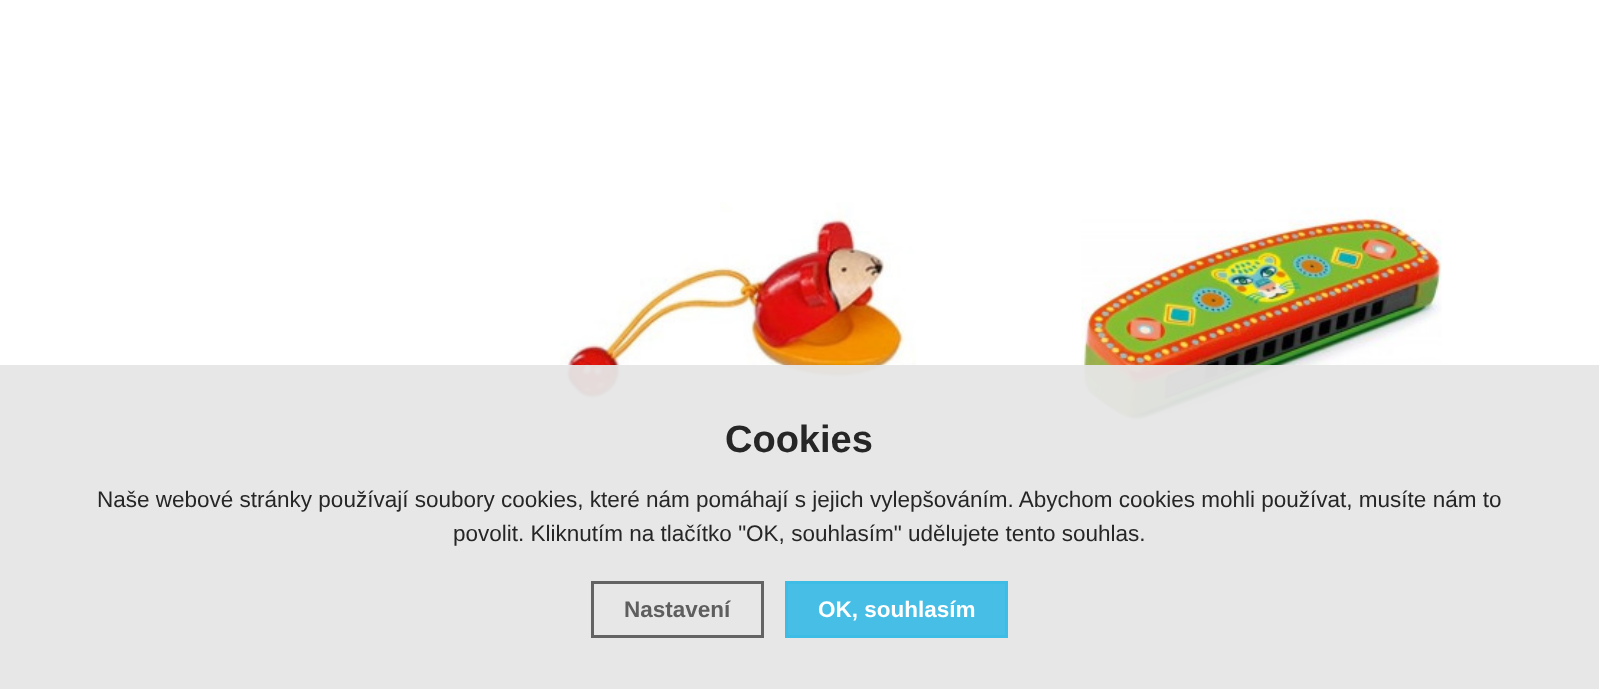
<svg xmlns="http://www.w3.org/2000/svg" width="1599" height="689">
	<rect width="100%" height="100%" fill="#FFFFFF" />
	<image x="560" y="202" width="356" height="202" href="assets/img1.png" />
	<image x="1081" y="207" width="361" height="218" href="assets/img2.png" />
	<rect x="0" y="365" width="1599" height="324" fill="#E6E6E6" fill-opacity="0.95" />
	<text x="725" y="452" font-family="Liberation Sans" font-size="38" font-weight="700" fill="#262626">Cookies</text>
	<g font-family="Liberation Sans" font-size="22.5" fill="#262626">
		<text x="97" y="507">Naše webové stránky používají soubory cookies, které nám pomáhají s jejich vylepšováním. Abychom cookies mohli používat, musíte nám to</text>
		<text x="453" y="541">povolit. Kliknutím na tlačítko "OK, souhlasím" udělujete tento souhlas.</text>
	</g>
	<rect x="592.5" y="582.5" width="170" height="54" fill="none" stroke="#5C5C5D" stroke-opacity="0.95" stroke-width="3" />
	<text x="624" y="617" font-family="Liberation Sans" font-size="22.5" font-weight="700" fill="#5E5E5E">Nastavení</text>
	<rect x="786.5" y="582.5" width="220" height="54" fill="#3DBCE5" fill-opacity="0.95" stroke="#3DBCE5" stroke-width="3" />
	<text x="818" y="617" font-family="Liberation Sans" font-size="22.5" font-weight="700" fill="#FFFFFF">OK, souhlasím</text>
</svg>
